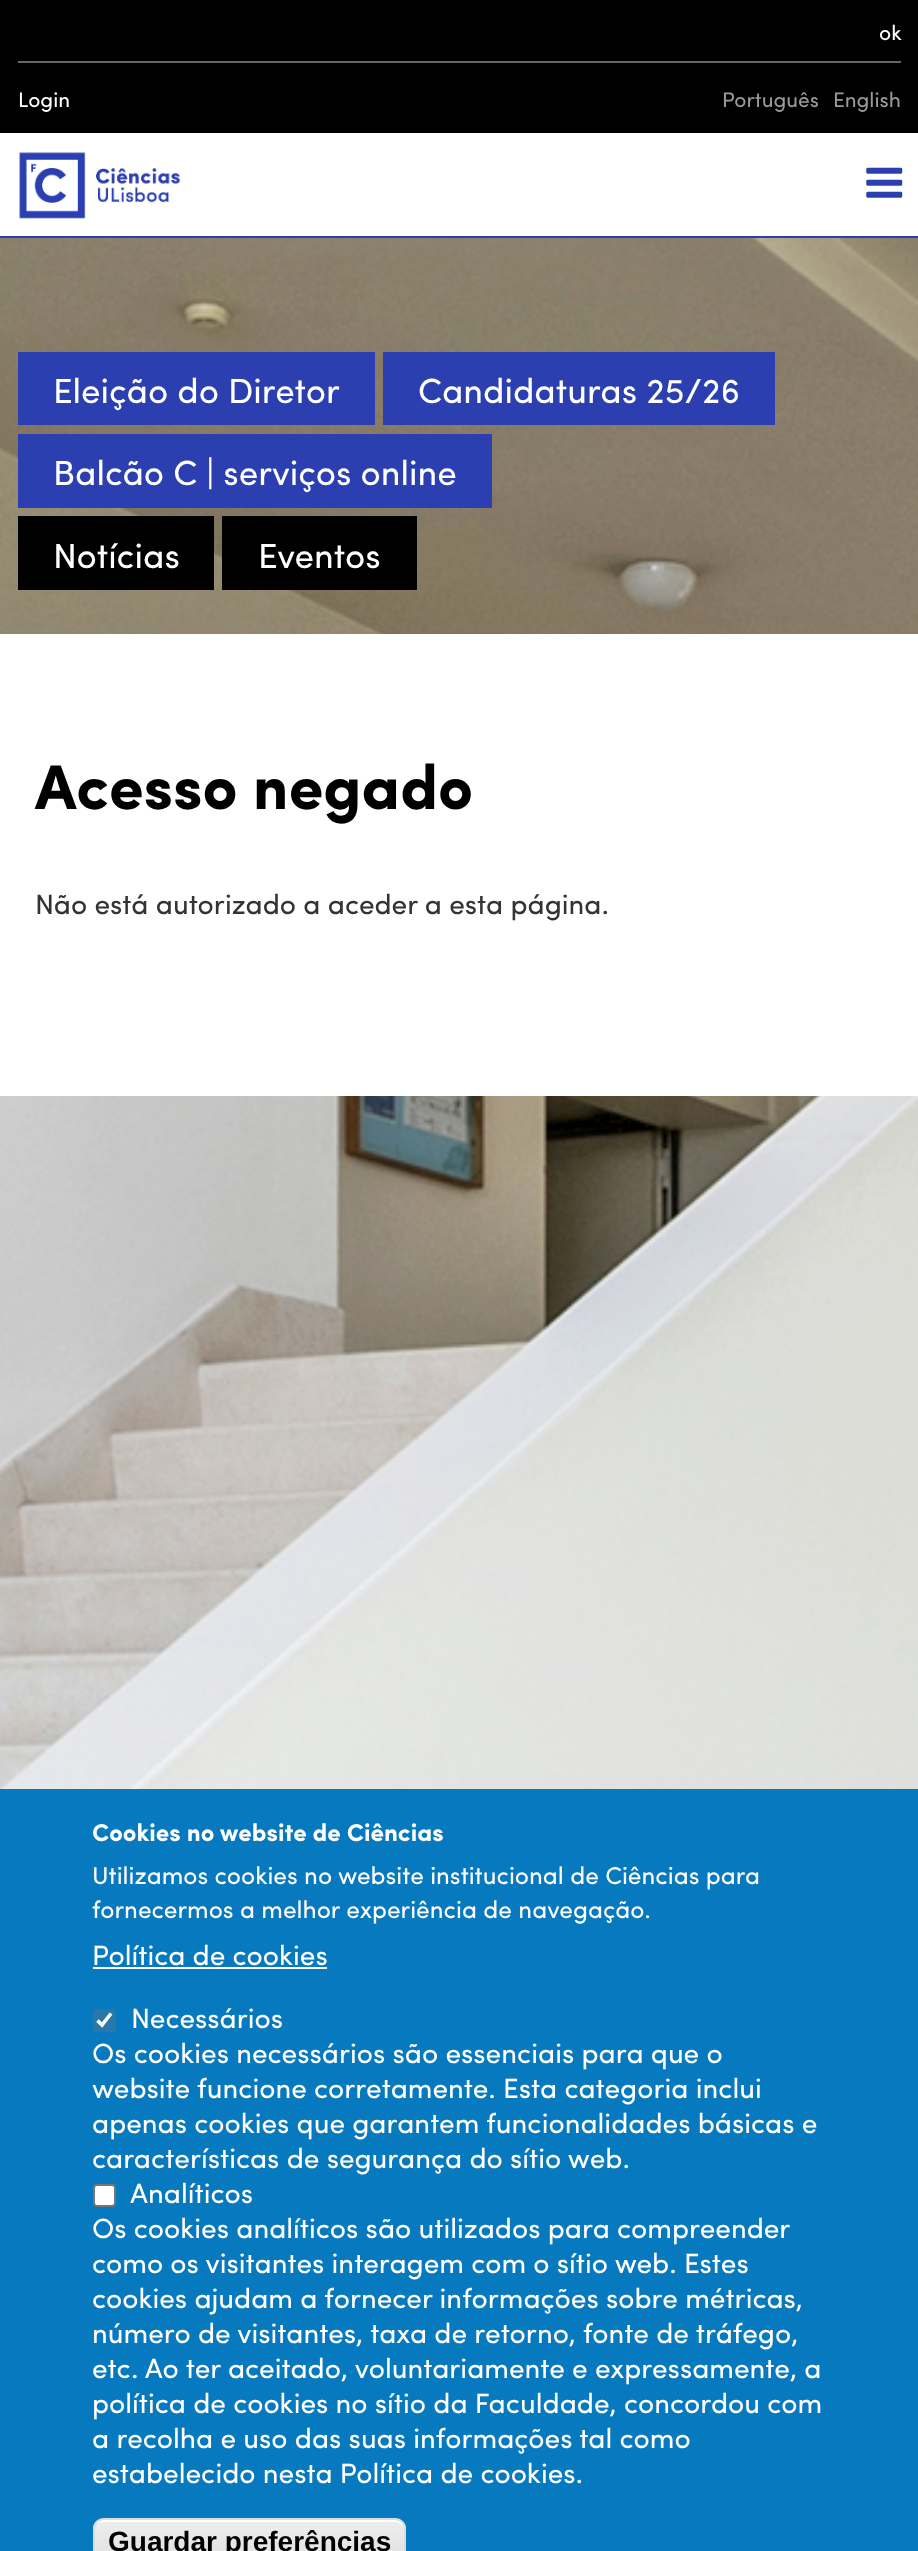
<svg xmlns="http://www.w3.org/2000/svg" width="918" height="2551">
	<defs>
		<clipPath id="clip1"><rect x="93" y="2518" width="313" height="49" rx="11" /></clipPath>
		<linearGradient id="g1" gradientUnits="userSpaceOnUse" x1="249" y1="2520" x2="249" y2="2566"><stop offset="0.05" stop-color="#EDEDED" /><stop offset="1" stop-color="#DFDFDF" /></linearGradient>
	</defs>
	<rect width="100%" height="100%" fill="#FFFFFF" />
	<image x="0" y="238" width="918" height="1551" href="assets/img1.png" />
	<rect x="0" y="0" width="918" height="133" fill="#000000" />
	<rect x="18" y="61" width="883" height="2" fill="#666666" />
	<g font-family="Sofia" font-size="21" fill="#FFFFFF">
		<text x="879" y="40">ok</text>
		<text x="18" y="107">Login</text>
	</g>
	<g font-family="Sofia" font-size="21" fill="#999999">
		<text x="722" y="107">Português</text>
		<text x="833" y="107">English</text>
	</g>
	<rect x="0" y="236" width="918" height="2" fill="#2C3FB1" />
	<image x="19" y="152" width="162" height="67" href="assets/img2.png" />
	<image x="866" y="167" width="37" height="31" href="assets/img3.png" />
	<rect x="18" y="352" width="357" height="73" fill="#2C3FB1" />
	<text x="53" y="403" font-family="Sofia" font-size="35" fill="#FFFFFF">Eleição do Diretor</text>
	<rect x="383" y="352" width="392" height="73" fill="#2C3FB1" />
	<text x="418" y="403" font-family="Sofia" font-size="35" fill="#FFFFFF">Candidaturas 25/26</text>
	<rect x="18" y="434" width="474" height="74" fill="#2C3FB1" />
	<text x="53" y="485" font-family="Sofia" font-size="35" fill="#FFFFFF">Balcão C | serviços online</text>
	<rect x="18" y="516" width="196" height="74" fill="#000000" />
	<text x="53" y="568" font-family="Sofia" font-size="35" fill="#FFFFFF">Notícias</text>
	<rect x="222" y="516" width="195" height="74" fill="#000000" />
	<text x="258" y="568" font-family="Sofia" font-size="35" fill="#FFFFFF">Eventos</text>
	<rect x="0" y="634" width="918" height="462" fill="#FFFFFF" />
	<text x="35" y="809" font-family="'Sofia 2'" font-size="63" fill="#000000">Acesso negado</text>
	<text x="35" y="914" font-family="Sofia" font-size="28" fill="#333333">Não está autorizado a aceder a esta página.</text>
	<rect x="0" y="1789" width="918" height="762" fill="#0779BF" />
	<text x="92" y="1841" font-family="'Sofia 2'" font-size="24.5" fill="#FFFFFF">Cookies no website de Ciências</text>
	<g font-family="Sofia" font-size="24.5" fill="#FFFFFF">
		<text x="92" y="1884">Utilizamos cookies no website institucional de Ciências para</text>
		<text x="92" y="1918">fornecermos a melhor experiência de navegação.</text>
	</g>
	<text x="92" y="1965" font-family="Sofia" font-size="28" fill="#FFFFFF">Política de cookies</text>
	<rect x="93" y="1967" width="234" height="2" fill="#FFFFFF" />
	<rect x="93" y="2009" width="23" height="23" rx="4" fill="#2878A9" />
	<path d="M97.5 2020.5L102 2025L111 2013.5" fill="none" stroke="#FFFFFF" stroke-width="3.6" />
	<g font-family="Sofia" font-size="28" fill="#FFFFFF">
		<text x="131" y="2028">Necessários</text>
		<text x="92" y="2063">Os cookies necessários são essenciais para que o</text>
		<text x="92" y="2098">website funcione corretamente. Esta categoria inclui</text>
		<text x="92" y="2133">apenas cookies que garantem funcionalidades básicas e</text>
		<text x="92" y="2168">características de segurança do sítio web.</text>
	</g>
	<rect x="94" y="2185" width="21" height="21" rx="3" fill="#FFFFFF" stroke="#767676" stroke-width="2" />
	<g font-family="Sofia" font-size="28" fill="#FFFFFF">
		<text x="130" y="2203">Analíticos</text>
		<text x="92" y="2238">Os cookies analíticos são utilizados para compreender</text>
		<text x="92" y="2273">como os visitantes interagem com o sítio web. Estes</text>
		<text x="92" y="2308">cookies ajudam a fornecer informações sobre métricas,</text>
		<text x="92" y="2343">número de visitantes, taxa de retorno, fonte de tráfego,</text>
		<text x="92" y="2378">etc. Ao ter aceitado, voluntariamente e expressamente, a</text>
		<text x="92" y="2413">política de cookies no sítio da Faculdade, concordou com</text>
		<text x="92" y="2448">a recolha e uso das suas informações tal como</text>
		<text x="92" y="2483">estabelecido nesta Política de cookies.</text>
	</g>
	<g clip-path="url(#clip1)">
		<rect x="93" y="2520" width="313" height="31" fill="url(#g1)" />
	</g>
	<path d="M103 2522H396C400 2522 404 2526 404 2530V2529C404 2524 400 2520 395 2520H104C100 2520 97 2522 96 2525C97 2523 100 2522 103 2522Z" fill="#FFFFFF" />
	<rect x="94" y="2519" width="311" height="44" rx="10" fill="none" stroke="#DCDCDC" stroke-width="2" />
	<text x="108" y="2551" font-family="Liberation Sans" font-size="28" font-weight="700" fill="#000000">Guardar preferências</text>
</svg>
